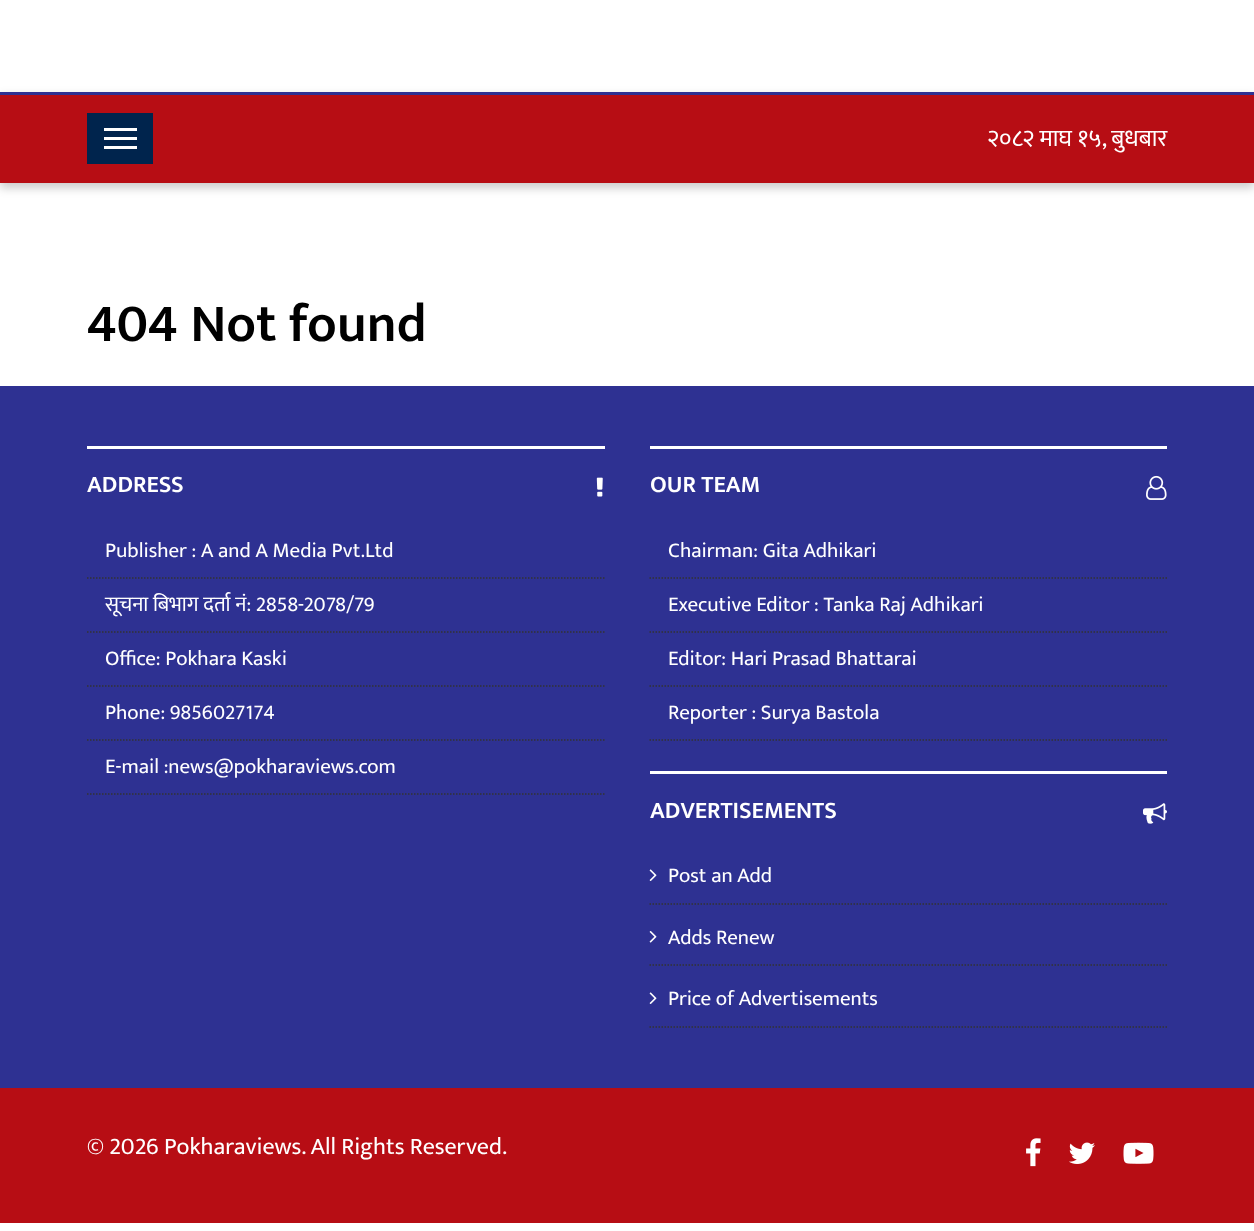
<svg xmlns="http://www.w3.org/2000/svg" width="1254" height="1231">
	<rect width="100%" height="100%" fill="#FFFFFF" />
	<rect x="0" y="96" width="1254" height="92" fill="#000000" fill-opacity="0.2" filter="blur(5px)" />
	<rect x="0" y="95" width="1254" height="88" fill="#B70D14" />
	<rect x="0" y="92" width="1254" height="3" fill="#2F3192" />
	<rect x="87" y="113" width="66" height="51" fill="#00244D" />
	<rect x="104" y="128" width="33" height="3" fill="#FFFFFF" />
	<rect x="104" y="137" width="33" height="3" fill="#FFFFFF" />
	<rect x="104" y="146" width="33" height="3" fill="#FFFFFF" />
	<text x="987" y="146" font-family="Ek Mukta" font-size="24" fill="#FFFFFF">२०८२ माघ १५, बुधबार</text>
	<text x="87" y="341" font-family="Ek Mukta" font-size="54" font-weight="600" fill="#000000">404 Not found</text>
	<rect x="0" y="386" width="1254" height="702" fill="#2E3192" />
	<rect x="87" y="446" width="518" height="3" fill="#FFFFFF" />
	<text x="87" y="492" font-family="Ek Mukta" font-size="24" font-weight="600" fill="#FFFFFF">ADDRESS</text>
	<image x="596" y="477" width="7" height="20" href="assets/img1.png" />
	<path d="M87 578H604.5" fill="none" stroke="#333333" stroke-width="1.5" stroke-dasharray="1.5 1.5" />
	<text x="105" y="557" font-family="Ek Mukta" font-size="21" fill="#FFFFFF">Publisher : A and A Media Pvt.Ltd</text>
	<path d="M87 632H604.5" fill="none" stroke="#333333" stroke-width="1.5" stroke-dasharray="1.5 1.5" />
	<text x="105" y="611" font-family="Ek Mukta" font-size="21" fill="#FFFFFF">सूचना बिभाग दर्ता नं: 2858-2078/79</text>
	<path d="M87 686H604.5" fill="none" stroke="#333333" stroke-width="1.5" stroke-dasharray="1.5 1.5" />
	<text x="105" y="665" font-family="Ek Mukta" font-size="21" fill="#FFFFFF">Office: Pokhara Kaski</text>
	<path d="M87 740H604.5" fill="none" stroke="#333333" stroke-width="1.5" stroke-dasharray="1.5 1.5" />
	<text x="105" y="719" font-family="Ek Mukta" font-size="21" fill="#FFFFFF">Phone: 9856027174</text>
	<path d="M87 794H604.5" fill="none" stroke="#333333" stroke-width="1.5" stroke-dasharray="1.5 1.5" />
	<text x="105" y="773" font-family="Ek Mukta" font-size="21" fill="#FFFFFF">E-mail :news@pokharaviews.com</text>
	<rect x="650" y="446" width="517" height="3" fill="#FFFFFF" />
	<text x="650" y="492" font-family="Ek Mukta" font-size="24" font-weight="600" fill="#FFFFFF">OUR TEAM</text>
	<image x="1146" y="475" width="21" height="25" href="assets/img2.png" />
	<path d="M649.5 578H1167" fill="none" stroke="#333333" stroke-width="1.5" stroke-dasharray="1.5 1.5" />
	<text x="668" y="557" font-family="Ek Mukta" font-size="21" fill="#FFFFFF">Chairman: Gita Adhikari</text>
	<path d="M649.5 632H1167" fill="none" stroke="#333333" stroke-width="1.5" stroke-dasharray="1.5 1.5" />
	<text x="668" y="611" font-family="Ek Mukta" font-size="21" fill="#FFFFFF">Executive Editor : Tanka Raj Adhikari</text>
	<path d="M649.5 686H1167" fill="none" stroke="#333333" stroke-width="1.5" stroke-dasharray="1.5 1.5" />
	<text x="668" y="665" font-family="Ek Mukta" font-size="21" fill="#FFFFFF">Editor: Hari Prasad Bhattarai</text>
	<path d="M649.5 740H1167" fill="none" stroke="#333333" stroke-width="1.5" stroke-dasharray="1.5 1.5" />
	<text x="668" y="719" font-family="Ek Mukta" font-size="21" fill="#FFFFFF">Reporter : Surya Bastola</text>
	<rect x="650" y="771" width="517" height="3" fill="#FFFFFF" />
	<text x="650" y="818" font-family="Ek Mukta" font-size="24" font-weight="600" fill="#FFFFFF">ADVERTISEMENTS</text>
	<image x="1143" y="803" width="24" height="21" href="assets/img3.png" />
	<path d="M649.5 904H1167" fill="none" stroke="#333333" stroke-width="1.5" stroke-dasharray="1.5 1.5" />
	<image x="649" y="869" width="8" height="12" href="assets/img4.png" />
	<text x="668" y="882" font-family="Ek Mukta" font-size="21" fill="#FFFFFF">Post an Add</text>
	<path d="M649.5 965H1167" fill="none" stroke="#333333" stroke-width="1.5" stroke-dasharray="1.5 1.5" />
	<image x="649" y="931" width="8" height="12" href="assets/img5.png" />
	<text x="668" y="944" font-family="Ek Mukta" font-size="21" fill="#FFFFFF">Adds Renew</text>
	<path d="M649.5 1027H1167" fill="none" stroke="#333333" stroke-width="1.5" stroke-dasharray="1.5 1.5" />
	<image x="649" y="992" width="8" height="12" href="assets/img4.png" />
	<text x="668" y="1005" font-family="Ek Mukta" font-size="21" fill="#FFFFFF">Price of Advertisements</text>
	<rect x="0" y="1088" width="1254" height="135" fill="#B70D14" />
	<text x="87" y="1154" font-family="Ek Mukta" font-size="24" fill="#FFFFFF">© 2026 Pokharaviews. All Rights Reserved.</text>
	<image x="1026" y="1138" width="15" height="29" href="assets/img6.png" />
	<image x="1069" y="1142" width="26" height="22" href="assets/img7.png" />
	<image x="1123" y="1142" width="31" height="22" href="assets/img8.png" />
</svg>
